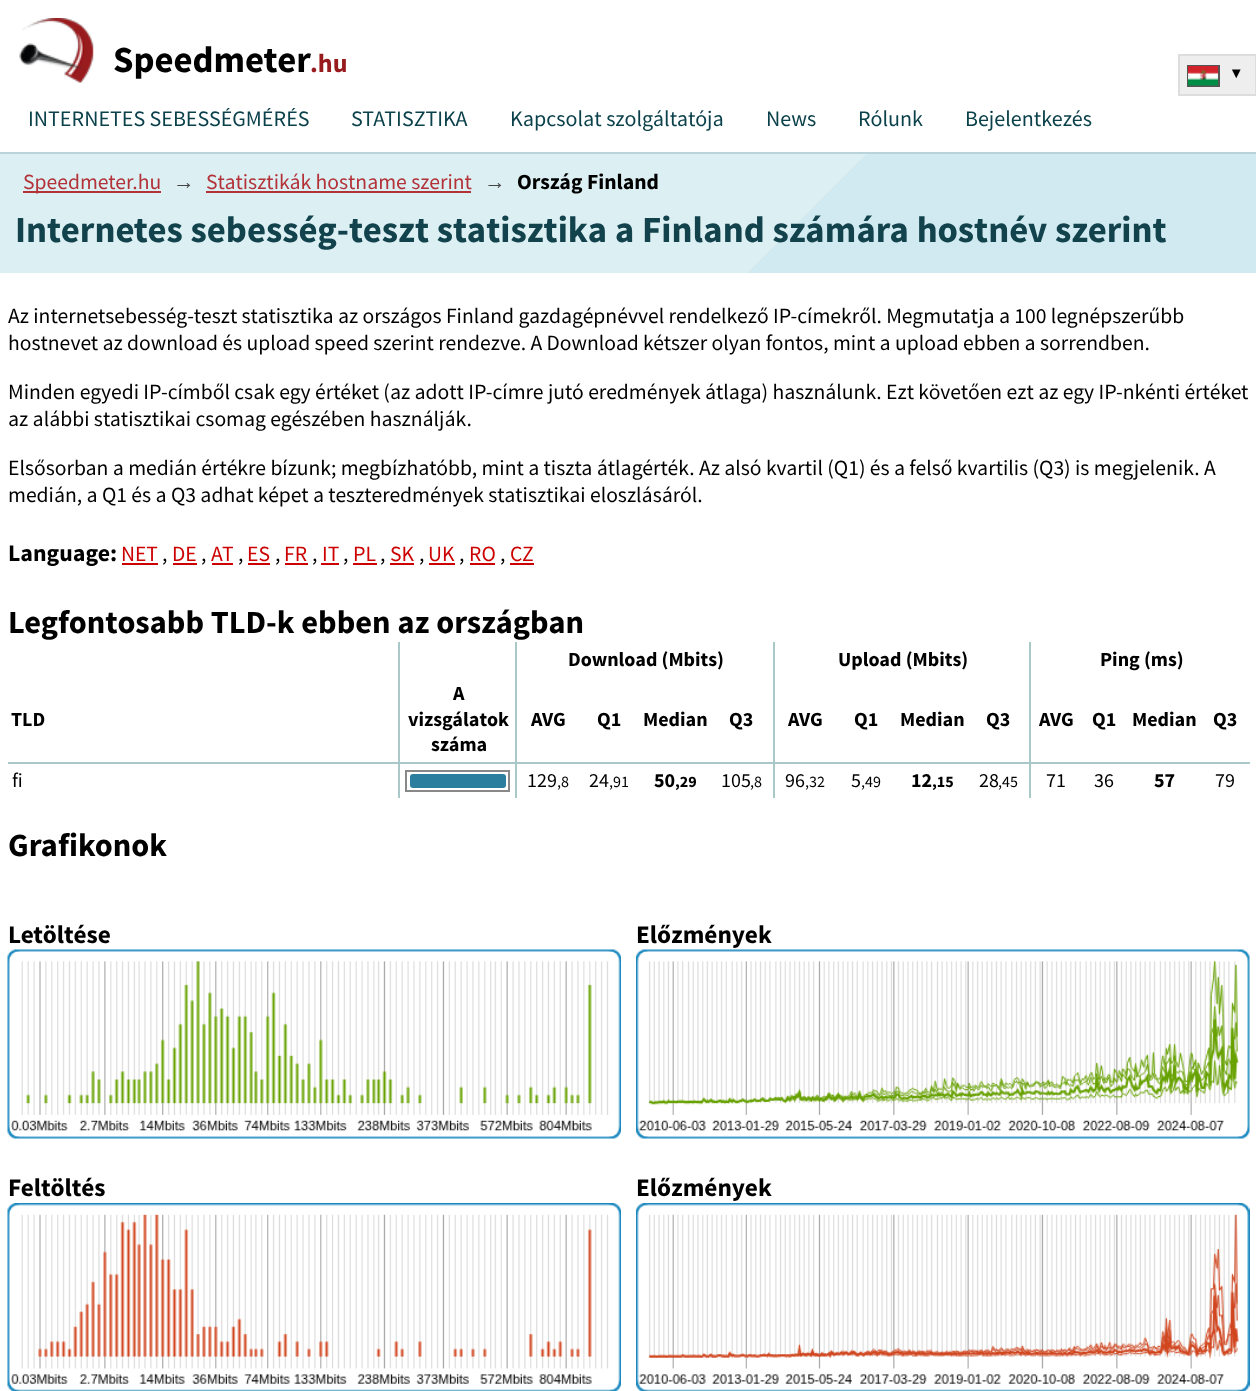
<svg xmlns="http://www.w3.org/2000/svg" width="1256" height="1391">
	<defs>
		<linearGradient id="g1" gradientUnits="userSpaceOnUse" x1="284" y1="-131" x2="973" y2="557"><stop offset="0" stop-color="#DCEFF3" /><stop offset="0.63" stop-color="#DCEFF3" /><stop offset="0.63" stop-color="#D1EAF1" /><stop offset="1" stop-color="#D1EAF1" /></linearGradient>
	</defs>
	<rect width="100%" height="100%" fill="#FFFFFF" />
	<image x="19" y="18" width="75" height="65" href="assets/img1.png" />
	<text x="113" y="72" font-family="Source Sans Pro" font-size="36.75" font-weight="700" fill="#000000">Speedmeter</text>
	<text x="310" y="72" font-family="Source Sans Pro" font-size="26" font-weight="700" fill="#981B1E">.hu</text>
	<rect x="1179" y="55" width="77" height="40" fill="#EEEEEE" stroke="#DDDDDD" stroke-width="2" />
	<rect x="1188" y="66" width="31" height="20" fill="none" stroke="#555555" stroke-width="2" />
	<image x="1188" y="66" width="30" height="20" href="assets/img2.png" />
	<text x="1232" y="78" font-family="DejaVu Sans" font-size="16" font-weight="700" fill="#000000">▾</text>
	<g font-family="Source Sans Pro" font-size="22" fill="#0B414B">
		<text x="28" y="126">INTERNETES SEBESSÉGMÉRÉS</text>
		<text x="351" y="126">STATISZTIKA</text>
		<text x="510" y="126">Kapcsolat szolgáltatója</text>
		<text x="766" y="126">News</text>
		<text x="858" y="126">Rólunk</text>
		<text x="965" y="126">Bejelentkezés</text>
	</g>
	<rect x="0" y="154" width="1256" height="119" fill="url(#g1)" />
	<rect x="0" y="152" width="1256" height="2" fill="#BAD2DA" />
	<rect x="23" y="191" width="138" height="2" fill="#B33238" />
	<text x="23" y="189" font-family="Source Sans Pro" font-size="21.6" fill="#B33238">Speedmeter.hu</text>
	<text x="173" y="189" font-family="Liberation Sans" font-size="21.6" fill="#444444">→</text>
	<text x="206" y="189" font-family="Source Sans Pro" font-size="21.6" fill="#B33238">Statisztikák hostname szerint</text>
	<rect x="206" y="191" width="265" height="2" fill="#B33238" />
	<text x="484" y="189" font-family="Liberation Sans" font-size="21.6" fill="#444444">→</text>
	<text x="517" y="189" font-family="Source Sans Pro" font-size="21.6" font-weight="700" fill="#000000">Ország Finland</text>
	<text x="15" y="242" font-family="Source Sans Pro" font-size="36.75" font-weight="700" fill="#12424C">Internetes sebesség-teszt statisztika a Finland számára hostnév szerint</text>
	<g font-family="Source Sans Pro" font-size="21.6" fill="#000000">
		<text x="8" y="323">Az internetsebesség-teszt statisztika az országos Finland gazdagépnévvel rendelkező IP-címekről. Megmutatja a 100 legnépszerűbb</text>
		<text x="8" y="350">hostnevet az download és upload speed szerint rendezve. A Download kétszer olyan fontos, mint a upload ebben a sorrendben.</text>
		<text x="8" y="399">Minden egyedi IP-címből csak egy értéket (az adott IP-címre jutó eredmények átlaga) használunk. Ezt követően ezt az egy IP-nkénti értéket</text>
		<text x="8" y="426">az alábbi statisztikai csomag egészében használják.</text>
		<text x="8" y="475">Elsősorban a medián értékre bízunk; megbízhatóbb, mint a tiszta átlagérték. Az alsó kvartil (Q1) és a felső kvartilis (Q3) is megjelenik. A</text>
		<text x="8" y="502">medián, a Q1 és a Q3 adhat képet a teszteredmények statisztikai eloszlásáról.</text>
	</g>
	<text x="8" y="561" font-family="Source Sans Pro" font-size="23.75" font-weight="700" fill="#000000">Language:</text>
	<text x="121" y="561" font-family="Source Sans Pro" font-size="21.6" fill="#CC0000">NET</text>
	<rect x="122" y="563" width="36" height="2" fill="#CC0000" />
	<text x="162" y="561" font-family="Source Sans Pro" font-size="21.6" fill="#000000">,</text>
	<text x="172" y="561" font-family="Source Sans Pro" font-size="21.6" fill="#CC0000">DE</text>
	<rect x="173" y="563" width="24" height="2" fill="#CC0000" />
	<text x="201" y="561" font-family="Source Sans Pro" font-size="21.6" fill="#000000">,</text>
	<text x="211" y="561" font-family="Source Sans Pro" font-size="21.6" fill="#CC0000">AT</text>
	<rect x="212" y="563" width="21" height="2" fill="#CC0000" />
	<text x="238" y="561" font-family="Source Sans Pro" font-size="21.6" fill="#000000">,</text>
	<text x="247" y="561" font-family="Source Sans Pro" font-size="21.6" fill="#CC0000">ES</text>
	<rect x="248" y="563" width="22" height="2" fill="#CC0000" />
	<text x="275" y="561" font-family="Source Sans Pro" font-size="21.6" fill="#000000">,</text>
	<text x="284" y="561" font-family="Source Sans Pro" font-size="21.6" fill="#CC0000">FR</text>
	<rect x="285" y="563" width="23" height="2" fill="#CC0000" />
	<text x="312" y="561" font-family="Source Sans Pro" font-size="21.6" fill="#000000">,</text>
	<text x="322" y="561" font-family="Source Sans Pro" font-size="21.6" fill="#CC0000">IT</text>
	<rect x="321" y="563" width="18" height="2" fill="#CC0000" />
	<text x="343" y="561" font-family="Source Sans Pro" font-size="21.6" fill="#000000">,</text>
	<text x="353" y="561" font-family="Source Sans Pro" font-size="21.6" fill="#CC0000">PL</text>
	<rect x="353" y="563" width="24" height="2" fill="#CC0000" />
	<text x="380" y="561" font-family="Source Sans Pro" font-size="21.6" fill="#000000">,</text>
	<text x="390" y="561" font-family="Source Sans Pro" font-size="21.6" fill="#CC0000">SK</text>
	<rect x="390" y="563" width="24" height="2" fill="#CC0000" />
	<text x="419" y="561" font-family="Source Sans Pro" font-size="21.6" fill="#000000">,</text>
	<text x="428" y="561" font-family="Source Sans Pro" font-size="21.6" fill="#CC0000">UK</text>
	<rect x="429" y="563" width="26" height="2" fill="#CC0000" />
	<text x="459" y="561" font-family="Source Sans Pro" font-size="21.6" fill="#000000">,</text>
	<text x="469" y="561" font-family="Source Sans Pro" font-size="21.6" fill="#CC0000">RO</text>
	<rect x="470" y="563" width="25" height="2" fill="#CC0000" />
	<text x="500" y="561" font-family="Source Sans Pro" font-size="21.6" fill="#000000">,</text>
	<text x="510" y="561" font-family="Source Sans Pro" font-size="21.6" fill="#CC0000">CZ</text>
	<rect x="510" y="563" width="24" height="2" fill="#CC0000" />
	<text x="8" y="633" font-family="Source Sans Pro" font-size="32.4" font-weight="700" fill="#000000">Legfontosabb TLD-k ebben az országban</text>
	<g font-family="Source Sans Pro" font-size="20" font-weight="700" fill="#000000">
		<text x="568" y="666">Download (Mbits)</text>
		<text x="838" y="666">Upload (Mbits)</text>
		<text x="1100" y="666">Ping (ms)</text>
	</g>
	<rect x="1029" y="762" width="2" height="36" fill="#AAC8C8" />
	<rect x="1029" y="762" width="221" height="2" fill="#AAC8C8" />
	<rect x="1029" y="642" width="2" height="122" fill="#AAC8C8" />
	<rect x="773" y="762" width="2" height="36" fill="#AAC8C8" />
	<rect x="773" y="762" width="258" height="2" fill="#AAC8C8" />
	<rect x="773" y="642" width="2" height="122" fill="#AAC8C8" />
	<rect x="515" y="762" width="2" height="36" fill="#AAC8C8" />
	<rect x="515" y="762" width="259" height="2" fill="#AAC8C8" />
	<rect x="515" y="642" width="2" height="122" fill="#AAC8C8" />
	<rect x="398" y="762" width="2" height="36" fill="#AAC8C8" />
	<rect x="398" y="762" width="118" height="2" fill="#AAC8C8" />
	<rect x="398" y="642" width="2" height="122" fill="#AAC8C8" />
	<rect x="8" y="762" width="391" height="2" fill="#AAC8C8" />
	<g font-family="Source Sans Pro" font-size="20" font-weight="700" fill="#000000">
		<text x="11" y="726">TLD</text>
		<text x="453" y="700">A</text>
		<text x="408" y="726">vizsgálatok</text>
		<text x="431" y="751">száma</text>
		<text x="531" y="726">AVG</text>
		<text x="597" y="726">Q1</text>
		<text x="643" y="726">Median</text>
		<text x="729" y="726">Q3</text>
		<text x="788" y="726">AVG</text>
		<text x="854" y="726">Q1</text>
		<text x="900" y="726">Median</text>
		<text x="986" y="726">Q3</text>
		<text x="1039" y="726">AVG</text>
		<text x="1092" y="726">Q1</text>
		<text x="1132" y="726">Median</text>
		<text x="1213" y="726">Q3</text>
	</g>
	<text x="12" y="787" font-family="Source Sans Pro" font-size="20" fill="#000000">fi</text>
	<rect x="406" y="771" width="103" height="20" fill="none" stroke="#888888" stroke-width="2" />
	<rect x="410" y="774" width="96" height="14" rx="3" fill="#2C7E9F" />
	<text x="527" y="787" font-family="Source Sans Pro" font-size="20" fill="#000000">129</text>
	<text x="557" y="787" font-family="Source Sans Pro" font-size="16" fill="#000000">,8</text>
	<text x="589" y="787" font-family="Source Sans Pro" font-size="20" fill="#000000">24</text>
	<text x="609" y="787" font-family="Source Sans Pro" font-size="16" fill="#000000">,91</text>
	<text x="654" y="787" font-family="Source Sans Pro" font-size="20" font-weight="700" fill="#000000">50</text>
	<text x="675" y="787" font-family="Source Sans Pro" font-size="16" font-weight="700" fill="#000000">,29</text>
	<text x="721" y="787" font-family="Source Sans Pro" font-size="20" fill="#000000">105</text>
	<text x="750" y="787" font-family="Source Sans Pro" font-size="16" fill="#000000">,8</text>
	<text x="785" y="787" font-family="Source Sans Pro" font-size="20" fill="#000000">96</text>
	<text x="805" y="787" font-family="Source Sans Pro" font-size="16" fill="#000000">,32</text>
	<text x="851" y="787" font-family="Source Sans Pro" font-size="20" fill="#000000">5</text>
	<text x="861" y="787" font-family="Source Sans Pro" font-size="16" fill="#000000">,49</text>
	<text x="911" y="787" font-family="Source Sans Pro" font-size="20" font-weight="700" fill="#000000">12</text>
	<text x="932" y="787" font-family="Source Sans Pro" font-size="16" font-weight="700" fill="#000000">,15</text>
	<text x="979" y="787" font-family="Source Sans Pro" font-size="20" fill="#000000">28</text>
	<text x="998" y="787" font-family="Source Sans Pro" font-size="16" fill="#000000">,45</text>
	<g font-family="Source Sans Pro" font-size="20" fill="#000000">
		<text x="1046" y="787">71</text>
		<text x="1094" y="787">36</text>
	</g>
	<text x="1154" y="787" font-family="Source Sans Pro" font-size="20" font-weight="700" fill="#000000">57</text>
	<text x="1215" y="787" font-family="Source Sans Pro" font-size="20" fill="#000000">79</text>
	<text x="8" y="856" font-family="Source Sans Pro" font-size="32.4" font-weight="700" fill="#000000">Grafikonok</text>
	<text x="8" y="943" font-family="Source Sans Pro" font-size="25.25" font-weight="700" fill="#000000">Letöltése</text>
	<image x="7" y="949" width="614" height="190" href="assets/img3.png" />
	<text x="636" y="943" font-family="Source Sans Pro" font-size="25.25" font-weight="700" fill="#000000">Előzmények</text>
	<image x="636" y="949" width="614" height="190" href="assets/img4.png" />
	<text x="8" y="1196" font-family="Source Sans Pro" font-size="25.25" font-weight="700" fill="#000000">Feltöltés</text>
	<image x="7" y="1203" width="614" height="188" href="assets/img5.png" />
	<text x="636" y="1196" font-family="Source Sans Pro" font-size="25.25" font-weight="700" fill="#000000">Előzmények</text>
	<image x="636" y="1203" width="614" height="188" href="assets/img6.png" />
</svg>
